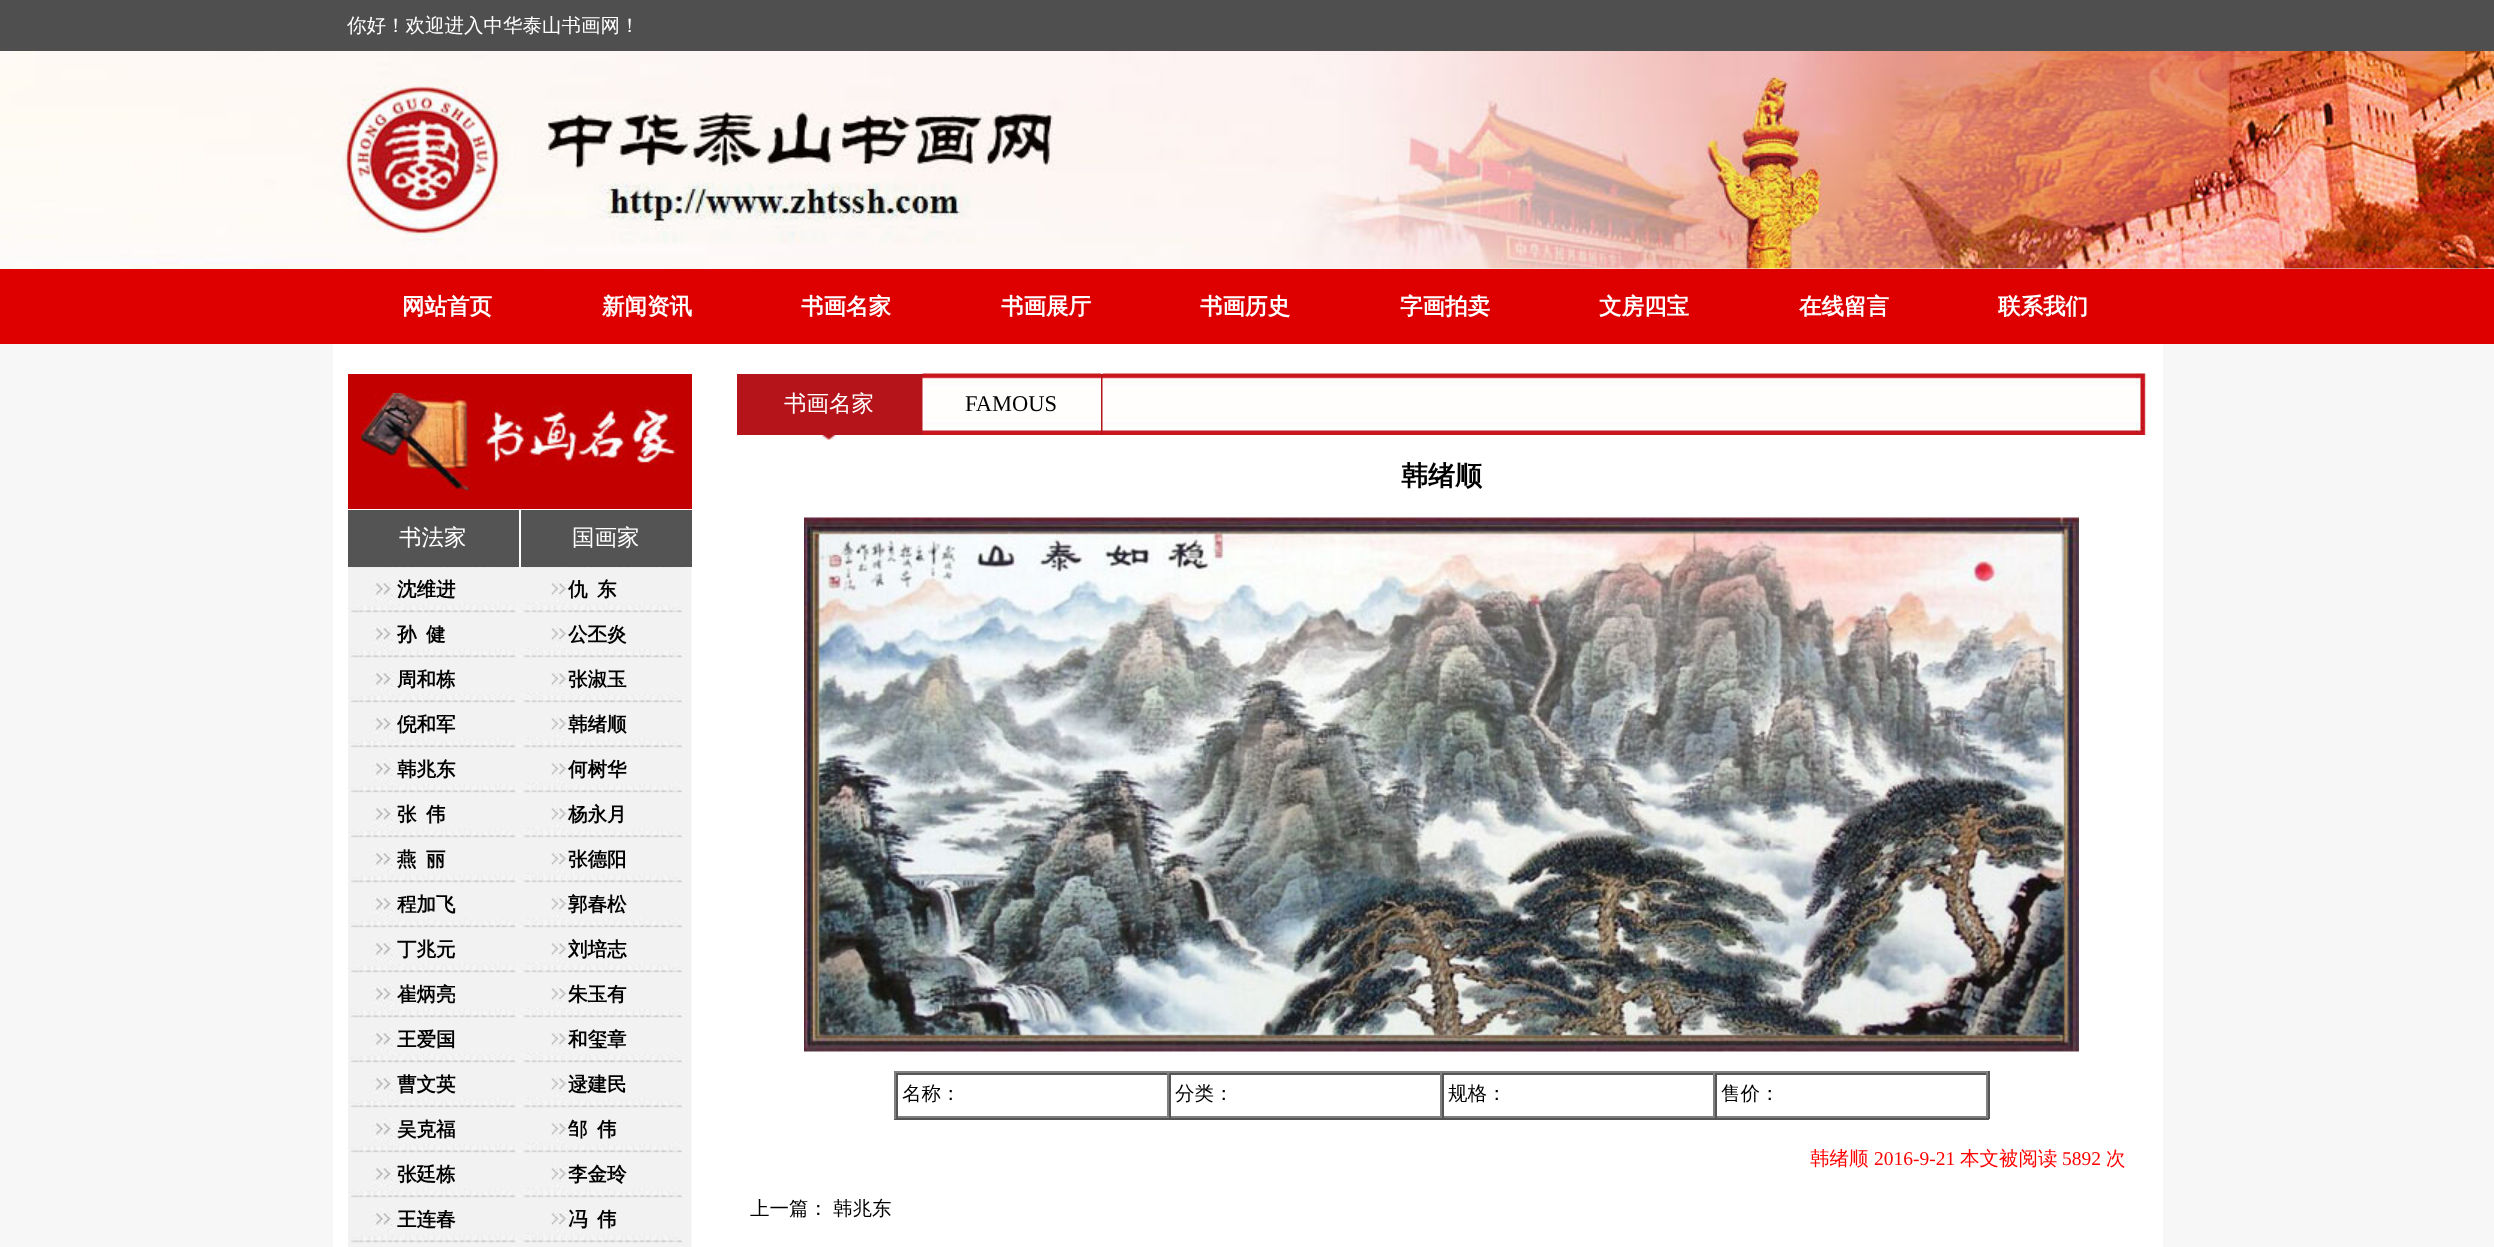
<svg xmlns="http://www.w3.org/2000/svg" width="2494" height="1247">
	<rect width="100%" height="100%" fill="#F7F7F7" />
	<rect x="0" y="0" width="2494" height="51" fill="#4F4F4F" />
	<text x="347" y="32" font-family="WenQuanYi Zen Hei" font-size="19.5" font-weight="500" fill="#FFFFFF">你好！欢迎进入中华泰山书画网！</text>
	<image x="0" y="51" width="2494" height="218" href="assets/img1.png" />
	<rect x="0" y="269" width="2494" height="75" fill="#DE0000" />
	<g font-family="WenQuanYi Zen Hei" font-size="22.5" font-weight="700" fill="#FFFFFF">
		<text x="402" y="314">网站首页</text>
		<text x="602" y="314">新闻资讯</text>
		<text x="801" y="314">书画名家</text>
		<text x="1001" y="314">书画展厅</text>
		<text x="1200" y="314">书画历史</text>
		<text x="1400" y="314">字画拍卖</text>
		<text x="1599" y="314">文房四宝</text>
		<text x="1799" y="314">在线留言</text>
		<text x="1998" y="314">联系我们</text>
	</g>
	<rect x="333" y="344" width="1830" height="903" fill="#FFFFFF" />
	<rect x="348" y="374" width="344" height="135" fill="#C30000" />
	<image x="361" y="393" width="317" height="98" href="assets/img2.png" />
	<rect x="348" y="510" width="171" height="57" fill="#545454" />
	<text x="399" y="545" font-family="WenQuanYi Zen Hei" font-size="22.5" font-weight="500" fill="#FFFFFF">书法家</text>
	<rect x="521" y="510" width="171" height="57" fill="#545454" />
	<text x="572" y="545" font-family="WenQuanYi Zen Hei" font-size="22.5" font-weight="500" fill="#FFFFFF">国画家</text>
	<image x="348" y="567" width="344" height="680" href="assets/img3.png" />
	<g font-family="WenQuanYi Zen Hei" font-size="19.5" font-weight="700" fill="#000000">
		<text x="397" y="596">沈维进</text>
		<text x="397" y="641">孙</text>
		<text x="426" y="641">健</text>
		<text x="397" y="686">周和栋</text>
		<text x="397" y="731">倪和军</text>
		<text x="397" y="776">韩兆东</text>
		<text x="397" y="821">张</text>
		<text x="426" y="821">伟</text>
		<text x="397" y="866">燕</text>
		<text x="426" y="866">丽</text>
		<text x="397" y="911">程加飞</text>
		<text x="397" y="956">丁兆元</text>
		<text x="397" y="1001">崔炳亮</text>
		<text x="397" y="1046">王爱国</text>
		<text x="397" y="1091">曹文英</text>
		<text x="397" y="1136">吴克福</text>
		<text x="397" y="1181">张廷栋</text>
		<text x="397" y="1226">王连春</text>
		<text x="568" y="596">仇</text>
		<text x="597" y="596">东</text>
		<text x="568" y="641">公丕炎</text>
		<text x="568" y="686">张淑玉</text>
		<text x="568" y="731">韩绪顺</text>
		<text x="568" y="776">何树华</text>
		<text x="568" y="821">杨永月</text>
		<text x="568" y="866">张德阳</text>
		<text x="568" y="911">郭春松</text>
		<text x="568" y="956">刘培志</text>
		<text x="568" y="1001">朱玉有</text>
		<text x="568" y="1046">和玺章</text>
		<text x="568" y="1091">逯建民</text>
		<text x="568" y="1136">邹</text>
		<text x="597" y="1136">伟</text>
		<text x="568" y="1181">李金玲</text>
		<text x="568" y="1226">冯</text>
		<text x="597" y="1226">伟</text>
	</g>
	<rect x="1101" y="374" width="2" height="61" fill="#B5141A" />
	<image x="1102" y="373" width="1034" height="62" href="assets/img4.png" />
	<image x="2136" y="373" width="12" height="62" href="assets/img5.png" />
	<rect x="737" y="374" width="186" height="61" fill="#B5141A" />
	<text x="784" y="411" font-family="WenQuanYi Zen Hei" font-size="22.5" font-weight="500" fill="#FFFFFF">书画名家</text>
	<image x="922" y="373" width="179" height="62" href="assets/img6.png" />
	<text x="965" y="411" font-family="Liberation Serif" font-size="22.5" fill="#000000">FAMOUS</text>
	<image x="822" y="435" width="15" height="5" href="assets/img7.png" />
	<text x="1401" y="485" font-family="WenQuanYi Zen Hei" font-size="27" font-weight="700" fill="#000000">韩绪顺</text>
	<image x="804" y="517" width="1275" height="535" href="assets/img8.png" />
	<rect x="894" y="1071" width="1095" height="2" fill="#808080" />
	<rect x="1988" y="1071" width="2" height="48" fill="#555555" />
	<rect x="894" y="1118" width="1095" height="2" fill="#555555" />
	<rect x="894" y="1071" width="2" height="48" fill="#808080" />
	<rect x="896" y="1073" width="1092" height="2" fill="#555555" />
	<rect x="1167" y="1073" width="2" height="45" fill="#808080" />
	<rect x="896" y="1116" width="273" height="2" fill="#808080" />
	<rect x="896" y="1073" width="2" height="45" fill="#555555" />
	<text x="902" y="1100" font-family="WenQuanYi Zen Hei" font-size="19.5" font-weight="500" fill="#000000">名称：</text>
	<rect x="1440" y="1073" width="2" height="45" fill="#808080" />
	<rect x="1169" y="1116" width="273" height="2" fill="#808080" />
	<rect x="1169" y="1073" width="2" height="45" fill="#555555" />
	<text x="1175" y="1100" font-family="WenQuanYi Zen Hei" font-size="19.5" font-weight="500" fill="#000000">分类：</text>
	<rect x="1713" y="1073" width="2" height="45" fill="#808080" />
	<rect x="1442" y="1116" width="273" height="2" fill="#808080" />
	<rect x="1442" y="1073" width="2" height="45" fill="#555555" />
	<text x="1448" y="1100" font-family="WenQuanYi Zen Hei" font-size="19.5" font-weight="500" fill="#000000">规格：</text>
	<rect x="1986" y="1073" width="2" height="45" fill="#808080" />
	<rect x="1715" y="1116" width="273" height="2" fill="#808080" />
	<rect x="1715" y="1073" width="2" height="45" fill="#555555" />
	<text x="1721" y="1100" font-family="WenQuanYi Zen Hei" font-size="19.5" font-weight="500" fill="#000000">售价：</text>
	<text x="1810" y="1165" font-family="WenQuanYi Zen Hei" font-size="19.5" font-weight="500" fill="#FF0000">韩绪顺</text>
	<text x="1874" y="1165" font-family="Liberation Serif" font-size="19.5" fill="#FF0000">2016-9-21</text>
	<text x="1960" y="1165" font-family="WenQuanYi Zen Hei" font-size="19.5" font-weight="500" fill="#FF0000">本文被阅读</text>
	<text x="2062" y="1165" font-family="Liberation Serif" font-size="19.5" fill="#FF0000">5892</text>
	<text x="2106" y="1165" font-family="WenQuanYi Zen Hei" font-size="19.5" font-weight="500" fill="#FF0000">次</text>
	<g font-family="WenQuanYi Zen Hei" font-size="19.5" font-weight="500" fill="#000000">
		<text x="750" y="1215">上一篇：</text>
		<text x="833" y="1215">韩兆东</text>
	</g>
</svg>
